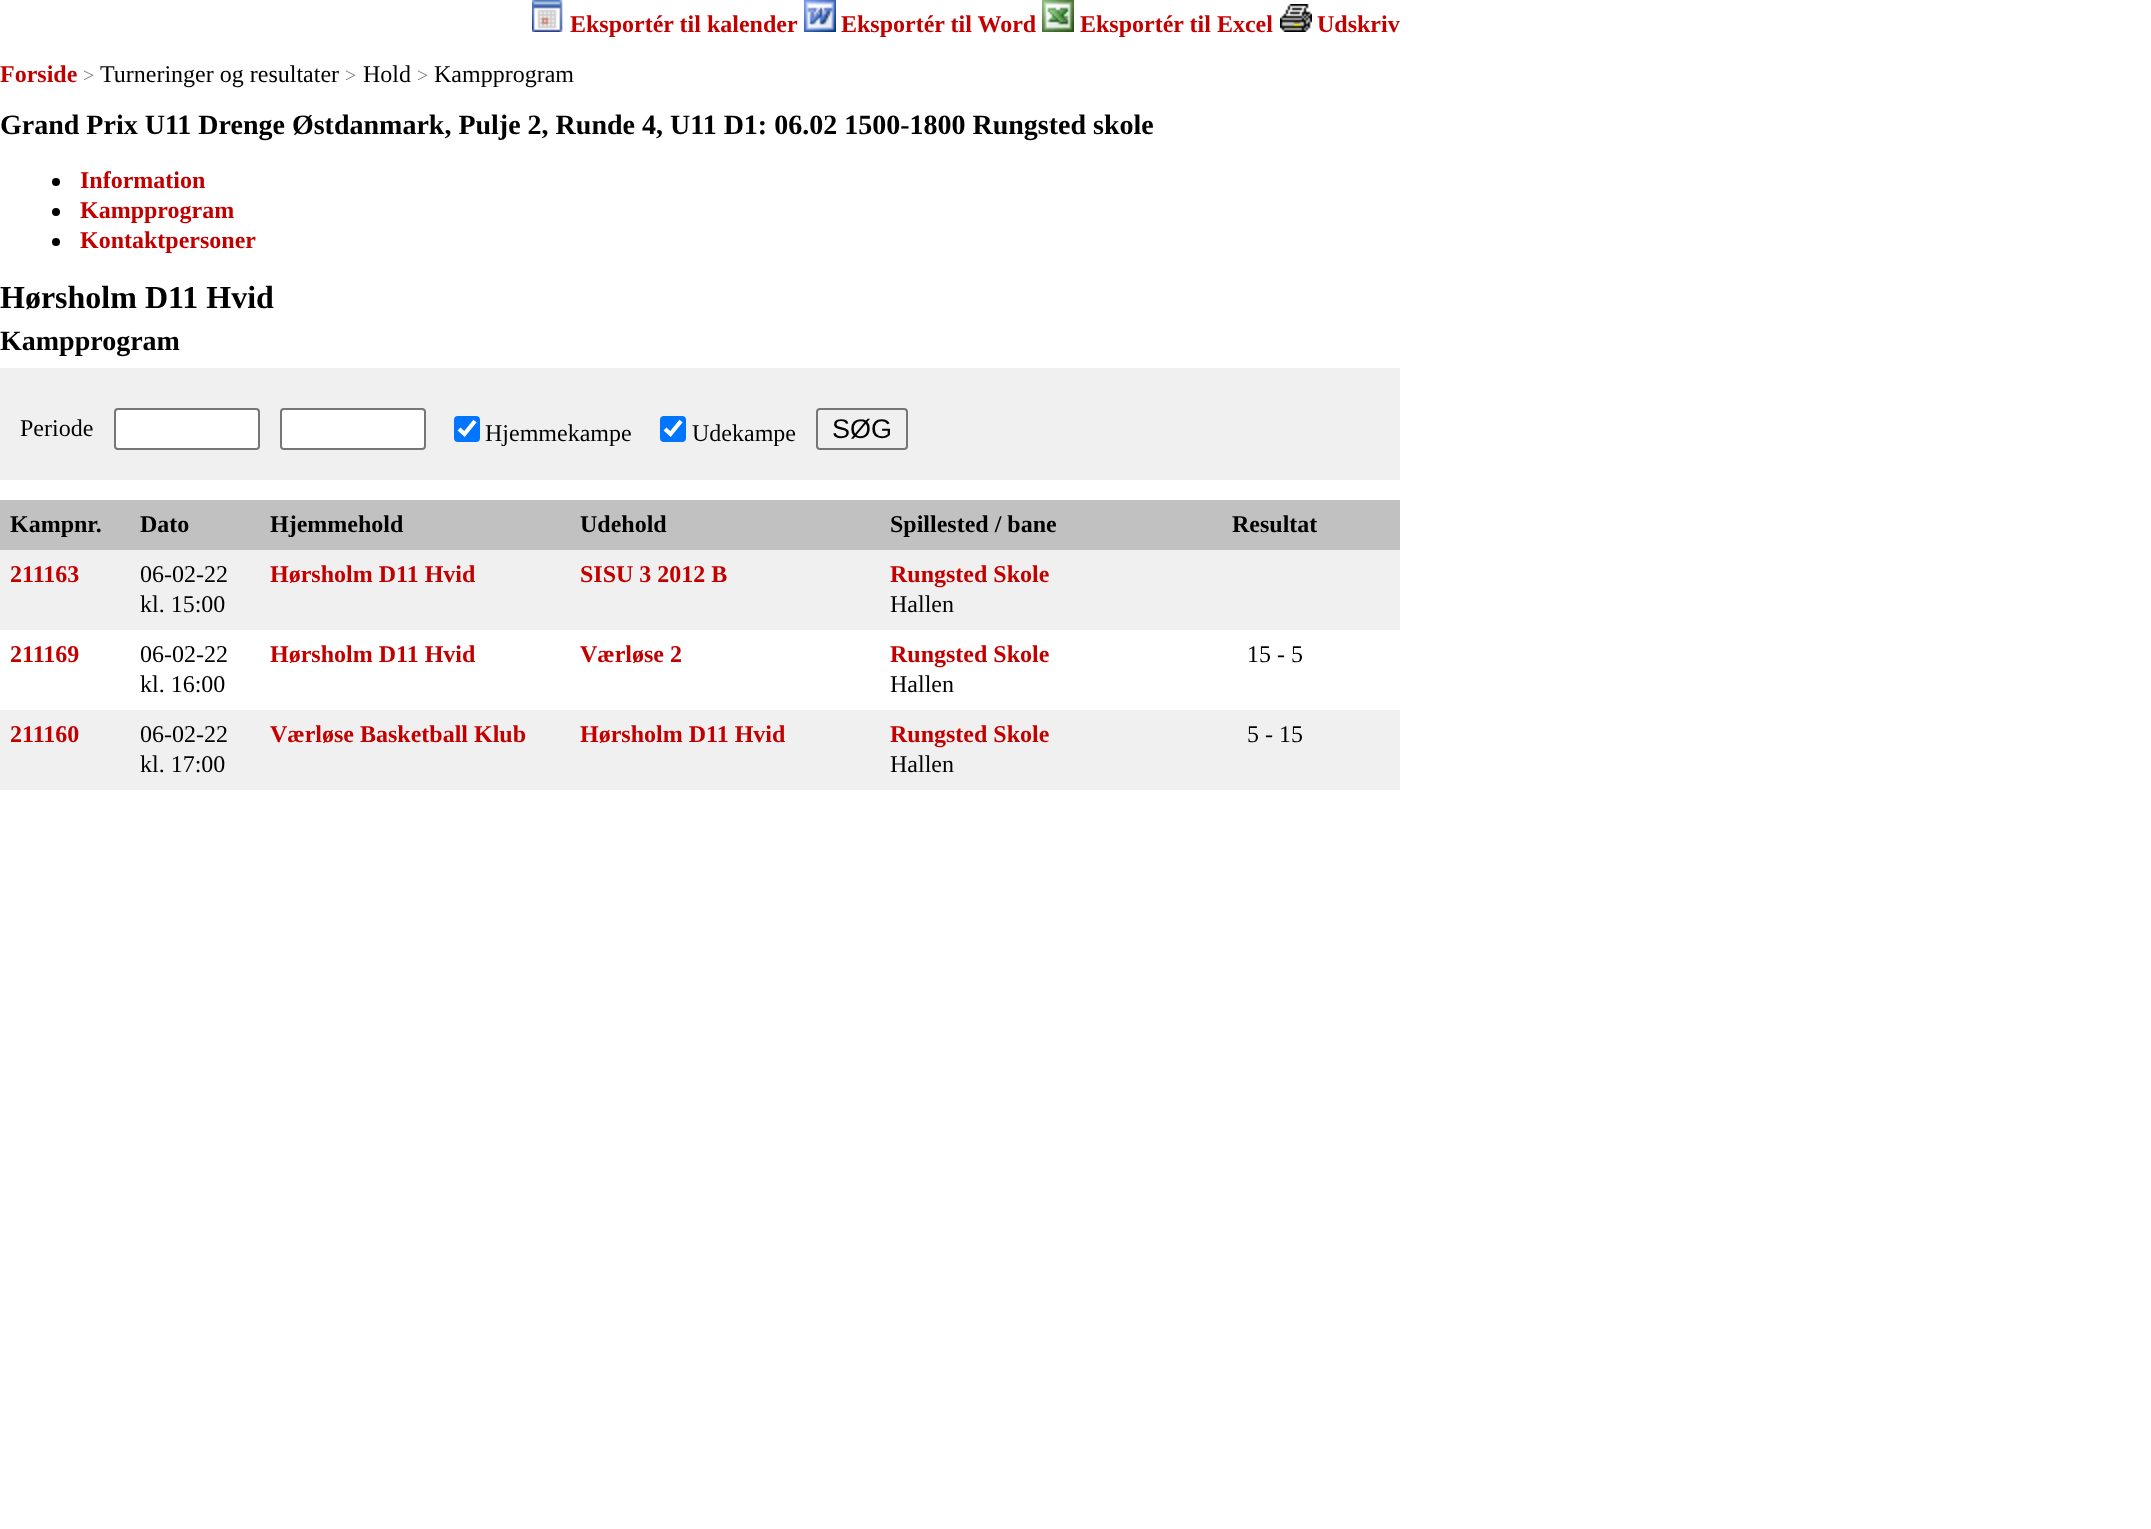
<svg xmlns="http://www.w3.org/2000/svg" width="2151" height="1529">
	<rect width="100%" height="100%" fill="#FFFFFF" />
	<image x="532" y="0" width="31" height="32" href="assets/img1.png" />
	<text x="570" y="32" font-family="Liberation Serif" font-size="24" font-weight="700" fill="#C30000">Eksportér til kalender</text>
	<image x="804" y="0" width="32" height="32" href="assets/img2.png" />
	<text x="841" y="32" font-family="Liberation Serif" font-size="24" font-weight="700" fill="#C30000">Eksportér til Word</text>
	<image x="1042" y="0" width="32" height="32" href="assets/img3.png" />
	<text x="1080" y="32" font-family="Liberation Serif" font-size="24" font-weight="700" fill="#C30000">Eksportér til Excel</text>
	<image x="1280" y="4" width="32" height="28" href="assets/img4.png" />
	<g font-family="Liberation Serif" font-size="24" font-weight="700" fill="#C30000">
		<text x="1317" y="32">Udskriv</text>
		<text x="0" y="82">Forside</text>
	</g>
	<text x="83" y="82" font-family="Liberation Serif" font-size="20" fill="#808080">&gt;</text>
	<text x="100" y="82" font-family="Liberation Serif" font-size="24" fill="#000000">Turneringer og resultater</text>
	<text x="345" y="82" font-family="Liberation Serif" font-size="20" fill="#808080">&gt;</text>
	<text x="363" y="82" font-family="Liberation Serif" font-size="24" fill="#000000">Hold</text>
	<text x="417" y="82" font-family="Liberation Serif" font-size="20" fill="#808080">&gt;</text>
	<text x="434" y="82" font-family="Liberation Serif" font-size="24" fill="#000000">Kampprogram</text>
	<text x="0" y="134" font-family="Liberation Serif" font-size="28" font-weight="700" fill="#000000">Grand Prix U11 Drenge Østdanmark, Pulje 2, Runde 4, U11 D1: 06.02 1500-1800 Rungsted skole</text>
	<circle cx="56" cy="182" r="4" fill="#000000" />
	<text x="80" y="188" font-family="Liberation Serif" font-size="24" font-weight="700" fill="#C30000">Information</text>
	<circle cx="56" cy="212" r="4" fill="#000000" />
	<text x="80" y="218" font-family="Liberation Serif" font-size="24" font-weight="700" fill="#C30000">Kampprogram</text>
	<circle cx="56" cy="242" r="4" fill="#000000" />
	<text x="80" y="248" font-family="Liberation Serif" font-size="24" font-weight="700" fill="#C30000">Kontaktpersoner</text>
	<text x="0" y="308" font-family="Liberation Serif" font-size="32" font-weight="700" fill="#000000">Hørsholm D11 Hvid</text>
	<text x="0" y="350" font-family="Liberation Serif" font-size="28" font-weight="700" fill="#000000">Kampprogram</text>
	<rect x="0" y="368" width="1400" height="112" fill="#F0F0F0" />
	<text x="20" y="436" font-family="Liberation Serif" font-size="24" fill="#000000">Periode</text>
	<rect x="115" y="409" width="144" height="40" rx="3" fill="#FFFFFF" stroke="#767676" stroke-width="2" />
	<rect x="281" y="409" width="144" height="40" rx="3" fill="#FFFFFF" stroke="#767676" stroke-width="2" />
	<rect x="454" y="416" width="26" height="26" rx="4" fill="#0075FF" />
	<path d="M459 429L464.5 434L475 421" fill="none" stroke="#FFFFFF" stroke-width="4.2" />
	<text x="485" y="441" font-family="Liberation Serif" font-size="24" fill="#000000">Hjemmekampe</text>
	<rect x="660" y="416" width="26" height="26" rx="4" fill="#0075FF" />
	<path d="M665 429L670.5 434L681 421" fill="none" stroke="#FFFFFF" stroke-width="4.2" />
	<text x="692" y="441" font-family="Liberation Serif" font-size="24" fill="#000000">Udekampe</text>
	<rect x="817" y="409" width="90" height="40" rx="3" fill="none" stroke="#767676" stroke-width="2" />
	<text x="832" y="438" font-family="Liberation Sans" font-size="27" fill="#000000">SØG</text>
	<rect x="0" y="500" width="1400" height="50" fill="#C1C1C1" />
	<g font-family="Liberation Serif" font-size="24" font-weight="700" fill="#000000">
		<text x="10" y="532">Kampnr.</text>
		<text x="140" y="532">Dato</text>
		<text x="270" y="532">Hjemmehold</text>
		<text x="580" y="532">Udehold</text>
		<text x="890" y="532">Spillested / bane</text>
		<text x="1232" y="532">Resultat</text>
	</g>
	<rect x="0" y="550" width="1400" height="80" fill="#F0F0F0" />
	<text x="10" y="582" font-family="Liberation Serif" font-size="24" font-weight="700" fill="#C30000">211163</text>
	<g font-family="Liberation Serif" font-size="24" fill="#000000">
		<text x="140" y="582">06-02-22</text>
		<text x="140" y="612">kl. 15:00</text>
	</g>
	<g font-family="Liberation Serif" font-size="24" font-weight="700" fill="#C30000">
		<text x="270" y="582">Hørsholm D11 Hvid</text>
		<text x="580" y="582">SISU 3 2012 B</text>
		<text x="890" y="582">Rungsted Skole</text>
	</g>
	<text x="890" y="612" font-family="Liberation Serif" font-size="24" fill="#000000">Hallen</text>
	<text x="10" y="662" font-family="Liberation Serif" font-size="24" font-weight="700" fill="#C30000">211169</text>
	<g font-family="Liberation Serif" font-size="24" fill="#000000">
		<text x="140" y="662">06-02-22</text>
		<text x="140" y="692">kl. 16:00</text>
	</g>
	<g font-family="Liberation Serif" font-size="24" font-weight="700" fill="#C30000">
		<text x="270" y="662">Hørsholm D11 Hvid</text>
		<text x="580" y="662">Værløse 2</text>
		<text x="890" y="662">Rungsted Skole</text>
	</g>
	<g font-family="Liberation Serif" font-size="24" fill="#000000">
		<text x="890" y="692">Hallen</text>
		<text x="1247" y="662">15 - 5</text>
	</g>
	<rect x="0" y="710" width="1400" height="80" fill="#F0F0F0" />
	<text x="10" y="742" font-family="Liberation Serif" font-size="24" font-weight="700" fill="#C30000">211160</text>
	<g font-family="Liberation Serif" font-size="24" fill="#000000">
		<text x="140" y="742">06-02-22</text>
		<text x="140" y="772">kl. 17:00</text>
	</g>
	<g font-family="Liberation Serif" font-size="24" font-weight="700" fill="#C30000">
		<text x="270" y="742">Værløse Basketball Klub</text>
		<text x="580" y="742">Hørsholm D11 Hvid</text>
		<text x="890" y="742">Rungsted Skole</text>
	</g>
	<g font-family="Liberation Serif" font-size="24" fill="#000000">
		<text x="890" y="772">Hallen</text>
		<text x="1247" y="742">5 - 15</text>
	</g>
</svg>
